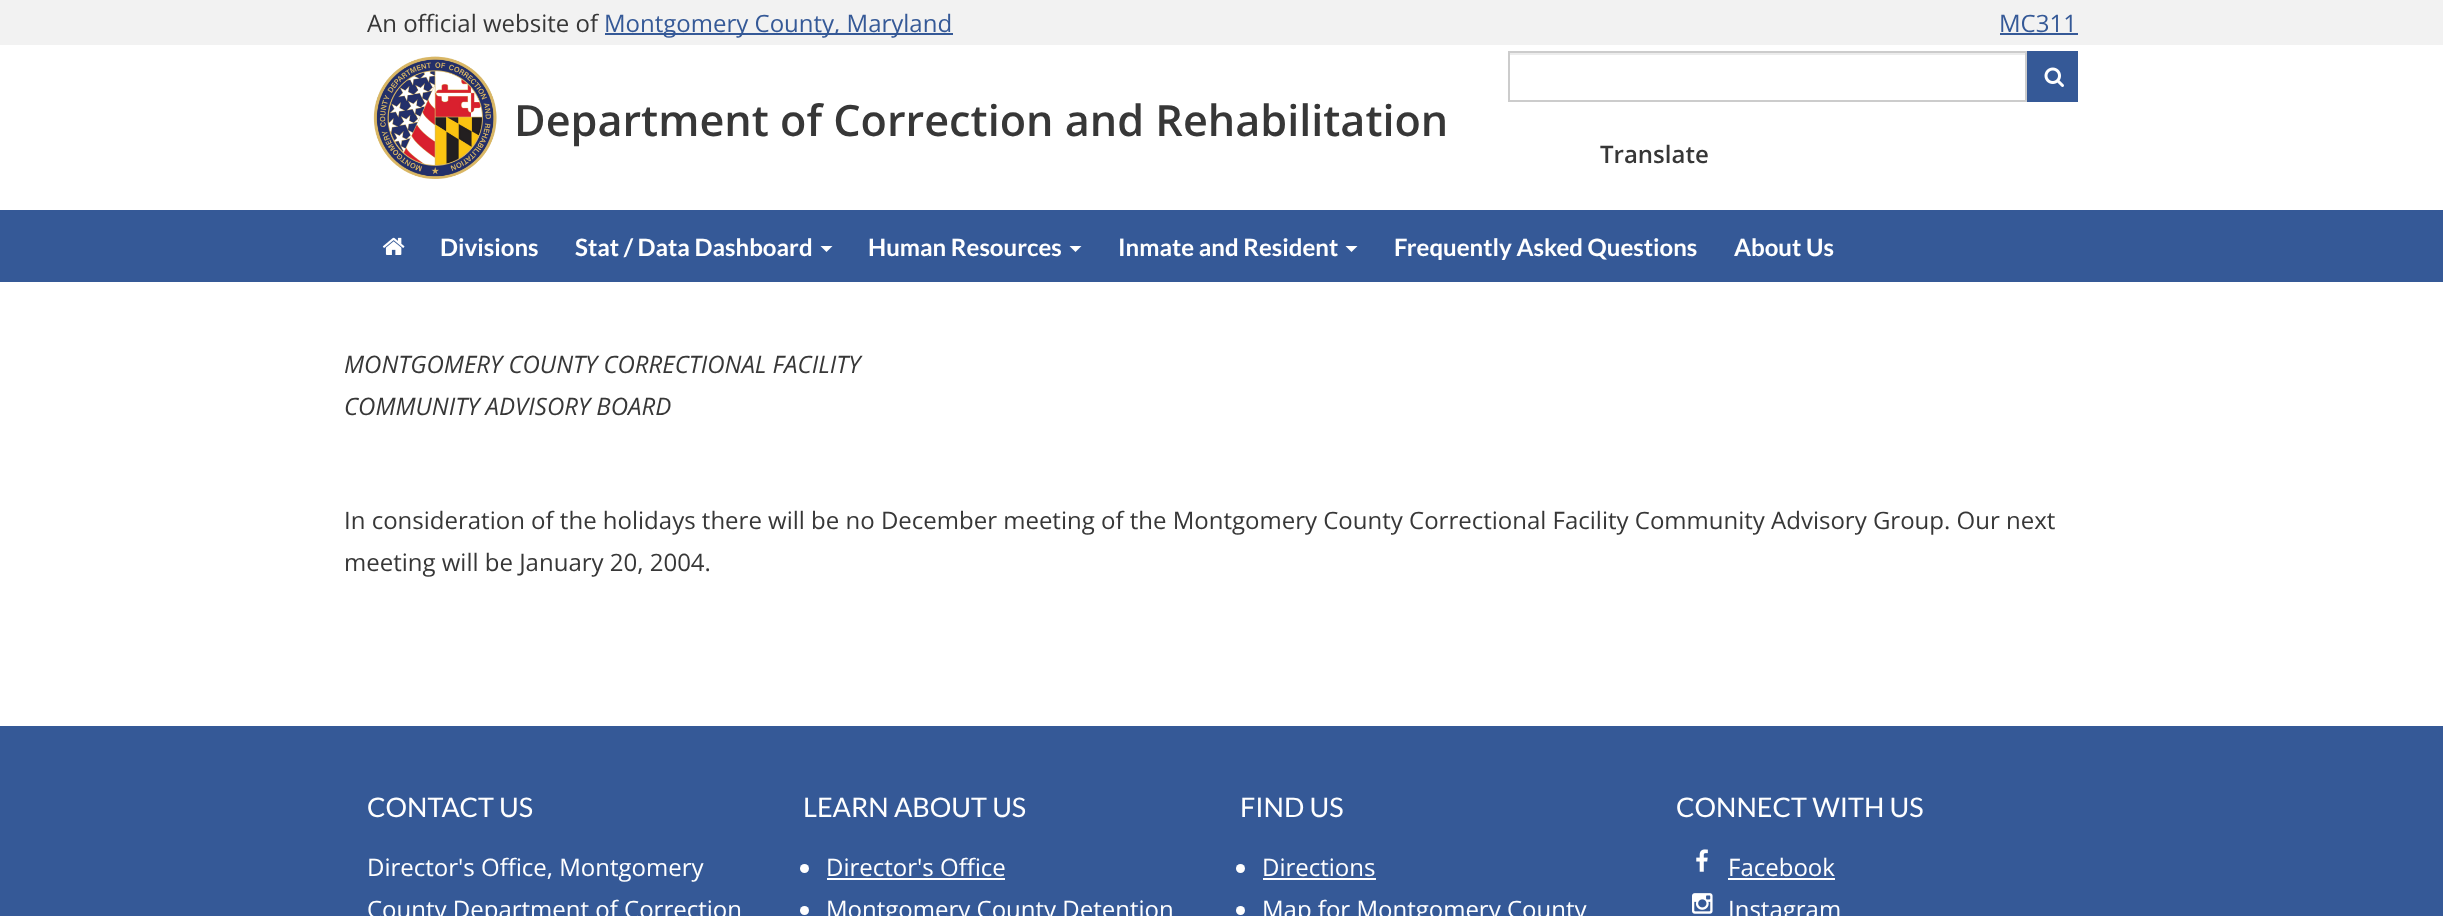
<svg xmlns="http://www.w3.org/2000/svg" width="2443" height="916">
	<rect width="100%" height="100%" fill="#FFFFFF" />
	<rect x="0" y="0" width="2443" height="45" fill="#F2F2F2" />
	<text x="367" y="32" font-family="Open Sans" font-size="24" fill="#373737">An official website of</text>
	<rect x="605" y="33" width="348" height="2" fill="#355997" />
	<g font-family="Open Sans" font-size="24" fill="#355997">
		<text x="604" y="32">Montgomery County, Maryland</text>
		<text x="1999" y="32">MC311</text>
	</g>
	<rect x="2000" y="33" width="78" height="2" fill="#355997" />
	<rect x="1509" y="53" width="516" height="2" fill="#ECECEC" />
	<rect x="1509" y="52" width="517" height="49" fill="none" stroke="#CCCCCC" stroke-width="2" />
	<rect x="2027" y="51" width="51" height="51" fill="#355997" />
	<image x="2044" y="67" width="20" height="20" href="assets/img1.png" />
	<image x="373" y="56" width="124" height="123" href="assets/img2.png" />
	<text x="514" y="136" font-family="Open Sans" font-size="43.2" font-weight="600" fill="#373737">Department of Correction and Rehabilitation</text>
	<rect x="0" y="210" width="2443" height="72" fill="#355997" />
	<text x="1600" y="163" font-family="Open Sans" font-size="24" font-weight="600" fill="#373737">Translate</text>
	<image x="382" y="237" width="23" height="18" href="assets/img3.png" />
	<g font-family="Lato" font-size="24" font-weight="700" fill="#FFFFFF">
		<text x="440" y="256">Divisions</text>
		<text x="575" y="256">Stat / Data Dashboard</text>
	</g>
	<path d="M820.5 246H832.5L826.5 252Z" fill="#FFFFFF" />
	<text x="868" y="256" font-family="Lato" font-size="24" font-weight="700" fill="#FFFFFF">Human Resources</text>
	<path d="M1069.5 246H1081.5L1075.5 252Z" fill="#FFFFFF" />
	<text x="1118" y="256" font-family="Lato" font-size="24" font-weight="700" fill="#FFFFFF">Inmate and Resident</text>
	<path d="M1345.5 246H1357.5L1351.5 252Z" fill="#FFFFFF" />
	<g font-family="Lato" font-size="24" font-weight="700" fill="#FFFFFF">
		<text x="1394" y="256">Frequently Asked Questions</text>
		<text x="1734" y="256">About Us</text>
	</g>
	<g font-family="Open Sans" font-size="24" font-style="italic" fill="#373737">
		<text x="344" y="373">MONTGOMERY COUNTY CORRECTIONAL FACILITY</text>
		<text x="344" y="415">COMMUNITY ADVISORY BOARD</text>
	</g>
	<g font-family="Open Sans" font-size="24" fill="#373737">
		<text x="344" y="529">In consideration of the holidays there will be no December meeting of the Montgomery County Correctional Facility Community Advisory Group. Our next</text>
		<text x="344" y="571">meeting will be January 20, 2004.</text>
	</g>
	<rect x="0" y="726" width="2443" height="190" fill="#355997" />
	<text x="367" y="817" font-family="Lato" font-size="27" fill="#FFFFFF">CONTACT US</text>
	<g font-family="Open Sans" font-size="24" fill="#FFFFFF">
		<text x="367" y="876">Director's Office, Montgomery</text>
		<text x="367" y="918">County Department of Correction</text>
	</g>
	<text x="803" y="817" font-family="Lato" font-size="27" fill="#FFFFFF">LEARN ABOUT US</text>
	<circle cx="804.5" cy="868.5" r="4.5" fill="#FFFFFF" />
	<text x="826" y="876" font-family="Open Sans" font-size="24" fill="#FFFFFF">Director's Office</text>
	<rect x="827" y="878" width="178" height="2" fill="#FFFFFF" />
	<circle cx="804.5" cy="910.5" r="4.5" fill="#FFFFFF" />
	<text x="826" y="918" font-family="Open Sans" font-size="24" fill="#FFFFFF">Montgomery County Detention</text>
	<text x="1240" y="817" font-family="Lato" font-size="27" fill="#FFFFFF">FIND US</text>
	<circle cx="1240.5" cy="868.5" r="4.5" fill="#FFFFFF" />
	<text x="1262" y="876" font-family="Open Sans" font-size="24" fill="#FFFFFF">Directions</text>
	<rect x="1263" y="878" width="113" height="2" fill="#FFFFFF" />
	<circle cx="1240.5" cy="910.5" r="4.5" fill="#FFFFFF" />
	<text x="1262" y="918" font-family="Open Sans" font-size="24" fill="#FFFFFF">Map for Montgomery County</text>
	<text x="1676" y="817" font-family="Lato" font-size="27" fill="#FFFFFF">CONNECT WITH US</text>
	<image x="1696" y="849" width="12" height="23" href="assets/img4.png" />
	<text x="1728" y="876" font-family="Open Sans" font-size="24" fill="#FFFFFF">Facebook</text>
	<rect x="1728" y="878" width="107" height="2" fill="#FFFFFF" />
	<image x="1692" y="893" width="21" height="21" href="assets/img5.png" />
	<text x="1728" y="918" font-family="Open Sans" font-size="24" fill="#FFFFFF">Instagram</text>
</svg>
